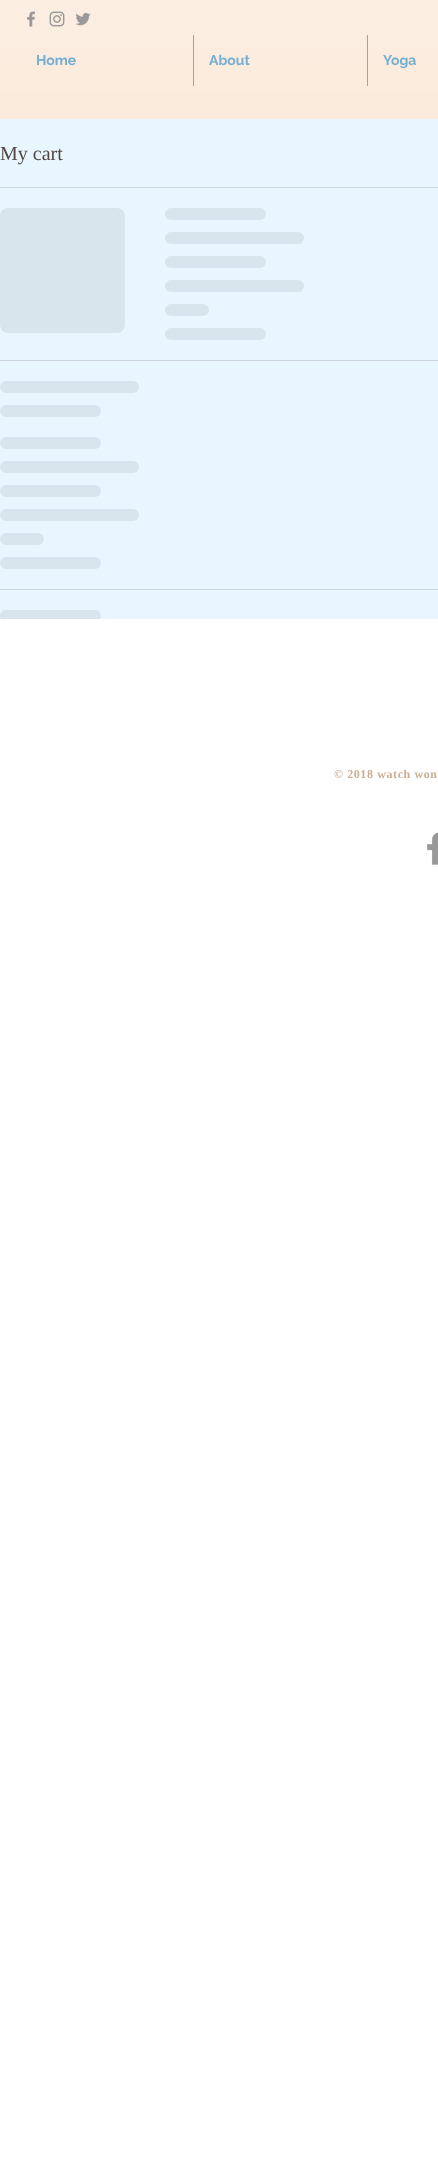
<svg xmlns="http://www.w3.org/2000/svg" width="438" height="2180">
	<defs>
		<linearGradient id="g1" gradientUnits="userSpaceOnUse" x1="0" y1="271" x2="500" y2="271"><stop offset="0.25" stop-color="#D9E5EC" /><stop offset="0.37" stop-color="#CAD4DA" /><stop offset="0.63" stop-color="#D9E5EC" /></linearGradient>
		<linearGradient id="g2" gradientUnits="userSpaceOnUse" x1="165" y1="214" x2="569" y2="214"><stop offset="0.25" stop-color="#D9E5EC" /><stop offset="0.37" stop-color="#CAD4DA" /><stop offset="0.63" stop-color="#D9E5EC" /></linearGradient>
		<linearGradient id="g3" gradientUnits="userSpaceOnUse" x1="165" y1="238" x2="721" y2="238"><stop offset="0.25" stop-color="#D9E5EC" /><stop offset="0.37" stop-color="#CAD4DA" /><stop offset="0.63" stop-color="#D9E5EC" /></linearGradient>
		<linearGradient id="g4" gradientUnits="userSpaceOnUse" x1="165" y1="262" x2="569" y2="262"><stop offset="0.25" stop-color="#D9E5EC" /><stop offset="0.37" stop-color="#CAD4DA" /><stop offset="0.63" stop-color="#D9E5EC" /></linearGradient>
		<linearGradient id="g5" gradientUnits="userSpaceOnUse" x1="165" y1="286" x2="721" y2="286"><stop offset="0.25" stop-color="#D9E5EC" /><stop offset="0.37" stop-color="#CAD4DA" /><stop offset="0.63" stop-color="#D9E5EC" /></linearGradient>
		<linearGradient id="g6" gradientUnits="userSpaceOnUse" x1="165" y1="310" x2="341" y2="310"><stop offset="0.25" stop-color="#D9E5EC" /><stop offset="0.37" stop-color="#CAD4DA" /><stop offset="0.63" stop-color="#D9E5EC" /></linearGradient>
		<linearGradient id="g7" gradientUnits="userSpaceOnUse" x1="165" y1="334" x2="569" y2="334"><stop offset="0.25" stop-color="#D9E5EC" /><stop offset="0.37" stop-color="#CAD4DA" /><stop offset="0.63" stop-color="#D9E5EC" /></linearGradient>
		<linearGradient id="g8" gradientUnits="userSpaceOnUse" x1="0" y1="387" x2="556" y2="387"><stop offset="0.25" stop-color="#D9E5EC" /><stop offset="0.37" stop-color="#CAD4DA" /><stop offset="0.63" stop-color="#D9E5EC" /></linearGradient>
		<linearGradient id="g9" gradientUnits="userSpaceOnUse" x1="0" y1="411" x2="404" y2="411"><stop offset="0.25" stop-color="#D9E5EC" /><stop offset="0.37" stop-color="#CAD4DA" /><stop offset="0.63" stop-color="#D9E5EC" /></linearGradient>
		<linearGradient id="g10" gradientUnits="userSpaceOnUse" x1="0" y1="443" x2="404" y2="443"><stop offset="0.25" stop-color="#D9E5EC" /><stop offset="0.37" stop-color="#CAD4DA" /><stop offset="0.63" stop-color="#D9E5EC" /></linearGradient>
		<linearGradient id="g11" gradientUnits="userSpaceOnUse" x1="0" y1="467" x2="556" y2="467"><stop offset="0.25" stop-color="#D9E5EC" /><stop offset="0.37" stop-color="#CAD4DA" /><stop offset="0.63" stop-color="#D9E5EC" /></linearGradient>
		<linearGradient id="g12" gradientUnits="userSpaceOnUse" x1="0" y1="491" x2="404" y2="491"><stop offset="0.25" stop-color="#D9E5EC" /><stop offset="0.37" stop-color="#CAD4DA" /><stop offset="0.63" stop-color="#D9E5EC" /></linearGradient>
		<linearGradient id="g13" gradientUnits="userSpaceOnUse" x1="0" y1="515" x2="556" y2="515"><stop offset="0.25" stop-color="#D9E5EC" /><stop offset="0.37" stop-color="#CAD4DA" /><stop offset="0.63" stop-color="#D9E5EC" /></linearGradient>
		<linearGradient id="g14" gradientUnits="userSpaceOnUse" x1="0" y1="539" x2="176" y2="539"><stop offset="0.25" stop-color="#D9E5EC" /><stop offset="0.37" stop-color="#CAD4DA" /><stop offset="0.63" stop-color="#D9E5EC" /></linearGradient>
		<linearGradient id="g15" gradientUnits="userSpaceOnUse" x1="0" y1="563" x2="404" y2="563"><stop offset="0.25" stop-color="#D9E5EC" /><stop offset="0.37" stop-color="#CAD4DA" /><stop offset="0.63" stop-color="#D9E5EC" /></linearGradient>
		<linearGradient id="g16" gradientUnits="userSpaceOnUse" x1="0" y1="616" x2="404" y2="616"><stop offset="0.25" stop-color="#D9E5EC" /><stop offset="0.37" stop-color="#CAD4DA" /><stop offset="0.63" stop-color="#D9E5EC" /></linearGradient>
	</defs>
	<rect width="100%" height="100%" fill="#FFFFFF" />
	<rect x="0" y="0" width="438" height="119" fill="#FAE8D7" />
	<image x="0" y="0" width="438" height="119" href="assets/img1.png" />
	<image x="27" y="11" width="8" height="16" href="assets/img2.png" />
	<image x="49" y="11" width="16" height="16" href="assets/img3.png" />
	<image x="75" y="12" width="16" height="14" href="assets/img4.png" />
	<text x="36" y="65" font-family="Raleway" font-size="14" font-weight="700" fill="#75AED1">Home</text>
	<rect x="193" y="35" width="1" height="51" fill="#75AED1" />
	<text x="209" y="65" font-family="Raleway" font-size="14" font-weight="700" fill="#75AED1">About</text>
	<rect x="367" y="35" width="1" height="51" fill="#75AED1" />
	<text x="383" y="65" font-family="Raleway" font-size="14" font-weight="700" fill="#75AED1">Yoga</text>
	<rect x="0" y="119" width="438" height="500" fill="#E8F7FF" />
	<rect x="0" y="187" width="438" height="1" fill="#CAD4DA" />
	<text x="0" y="160" font-family="Liberation Serif" font-size="20" fill="#534745">My cart</text>
	<rect x="0" y="208" width="125" height="125" rx="8" fill="url(#g1)" />
	<rect x="165" y="208" width="101" height="12" rx="6" fill="url(#g2)" />
	<rect x="165" y="232" width="139" height="12" rx="6" fill="url(#g3)" />
	<rect x="165" y="256" width="101" height="12" rx="6" fill="url(#g4)" />
	<rect x="165" y="280" width="139" height="12" rx="6" fill="url(#g5)" />
	<rect x="165" y="304" width="44" height="12" rx="6" fill="url(#g6)" />
	<rect x="165" y="328" width="101" height="12" rx="6" fill="url(#g7)" />
	<rect x="0" y="360" width="438" height="1" fill="#CAD4DA" />
	<rect x="0" y="381" width="139" height="12" rx="6" fill="url(#g8)" />
	<rect x="0" y="405" width="101" height="12" rx="6" fill="url(#g9)" />
	<rect x="0" y="437" width="101" height="12" rx="6" fill="url(#g10)" />
	<rect x="0" y="461" width="139" height="12" rx="6" fill="url(#g11)" />
	<rect x="0" y="485" width="101" height="12" rx="6" fill="url(#g12)" />
	<rect x="0" y="509" width="139" height="12" rx="6" fill="url(#g13)" />
	<rect x="0" y="533" width="44" height="12" rx="6" fill="url(#g14)" />
	<rect x="0" y="557" width="101" height="12" rx="6" fill="url(#g15)" />
	<rect x="0" y="589" width="438" height="1" fill="#CAD4DA" />
	<rect x="0" y="610" width="101" height="12" rx="6" fill="url(#g16)" />
	<rect x="1" y="619" width="99" height="3" fill="#FFFFFF" />
	<text x="334" y="778" font-family="Liberation Serif" font-size="12" font-weight="700" letter-spacing="0.6" fill="#CCAE93">© 2018 watch won</text>
	<image x="427" y="832" width="11" height="33" href="assets/img5.png" />
</svg>
